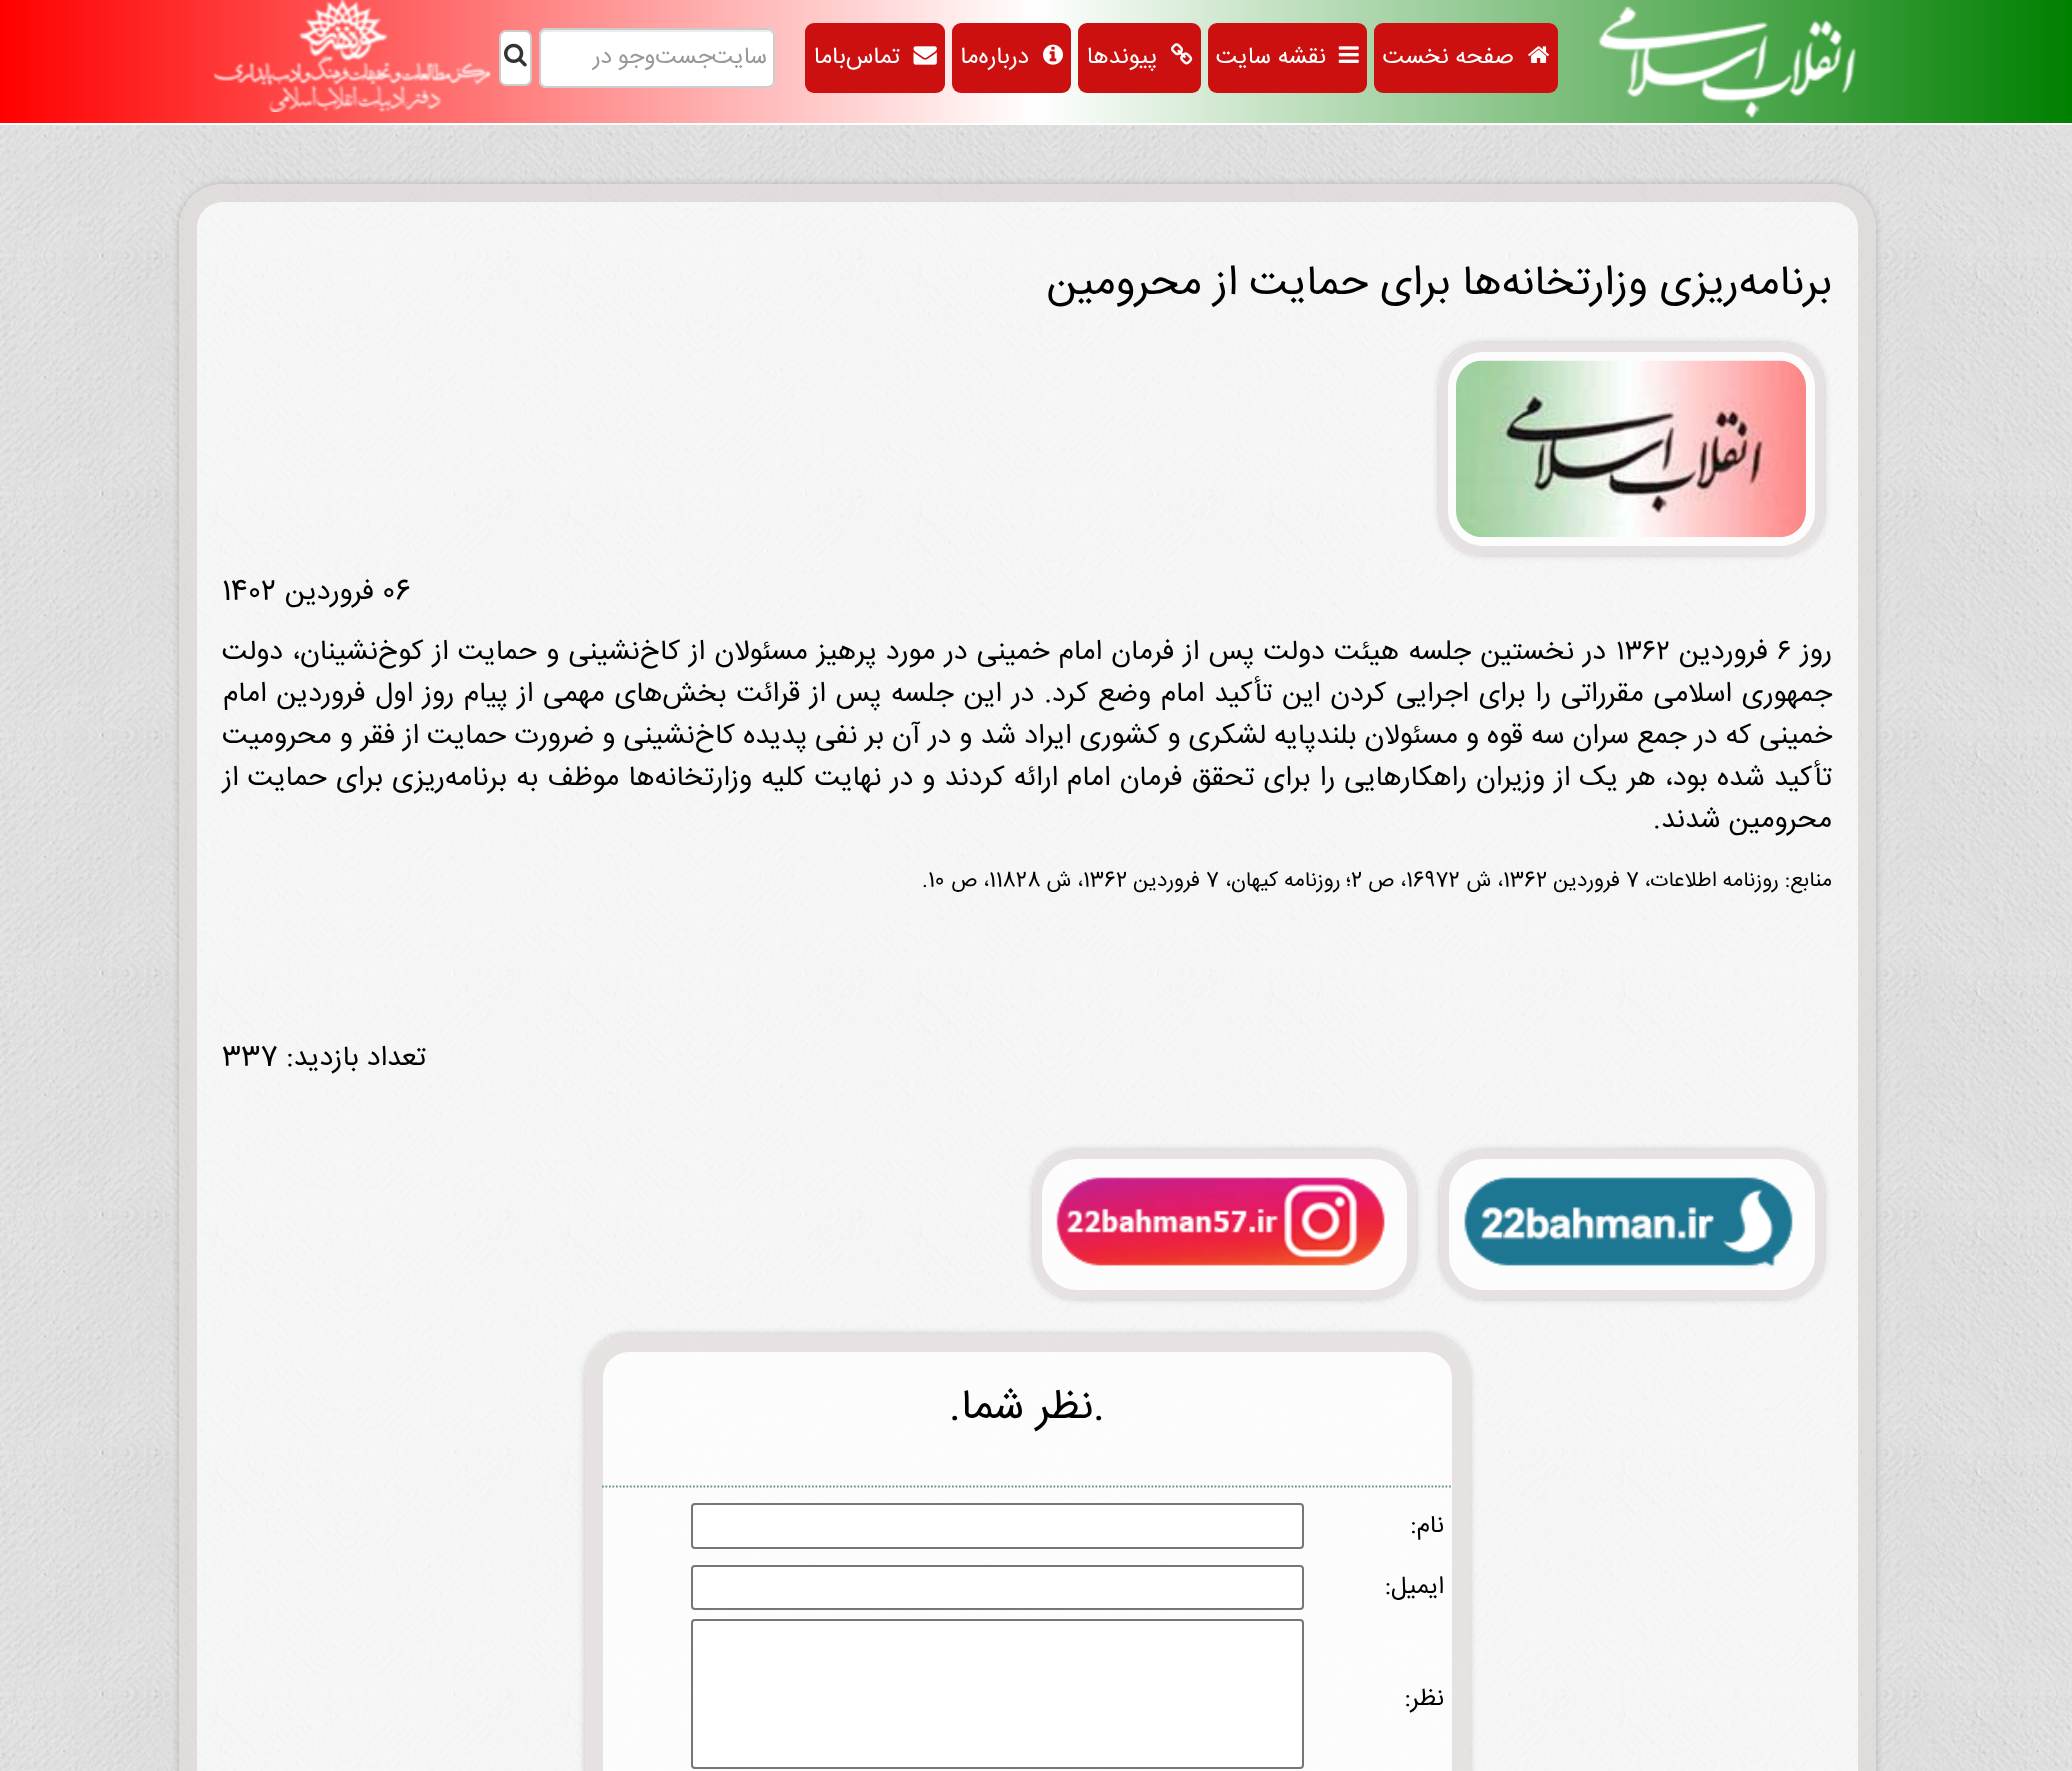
<svg xmlns="http://www.w3.org/2000/svg" width="2072" height="1771">
	<defs>
		<linearGradient id="g1" gradientUnits="userSpaceOnUse" x1="0" y1="61" x2="2072" y2="61"><stop offset="0" stop-color="#FF0000" /><stop offset="0.5" stop-color="#FFFFFF" /><stop offset="1" stop-color="#008000" /></linearGradient>
		<clipPath id="clip1"><path d="M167 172H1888V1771H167ZM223 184H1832C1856.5 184 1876 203.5 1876 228V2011C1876 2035.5 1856.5 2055 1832 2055H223C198.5 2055 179 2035.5 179 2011V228C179 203.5 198.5 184 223 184Z" clip-rule="evenodd" /></clipPath>
		<clipPath id="clip2"><path d="M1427 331H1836V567H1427ZM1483 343H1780C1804.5 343 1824 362.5 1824 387V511C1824 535.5 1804.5 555 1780 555H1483C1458.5 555 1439 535.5 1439 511V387C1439 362.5 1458.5 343 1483 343Z" clip-rule="evenodd" /></clipPath>
		<clipPath id="clip3"><path d="M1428 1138H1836V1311H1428ZM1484 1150H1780C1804.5 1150 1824 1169.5 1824 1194V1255C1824 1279.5 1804.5 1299 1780 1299H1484C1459.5 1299 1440 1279.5 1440 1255V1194C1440 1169.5 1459.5 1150 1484 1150Z" clip-rule="evenodd" /></clipPath>
		<clipPath id="clip4"><path d="M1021 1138H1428V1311H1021ZM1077 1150H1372C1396.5 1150 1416 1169.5 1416 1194V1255C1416 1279.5 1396.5 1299 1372 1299H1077C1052.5 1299 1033 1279.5 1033 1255V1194C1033 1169.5 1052.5 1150 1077 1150Z" clip-rule="evenodd" /></clipPath>
		<clipPath id="clip5"><path d="M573 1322H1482V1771H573ZM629 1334H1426C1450.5 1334 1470 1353.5 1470 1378V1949C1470 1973.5 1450.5 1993 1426 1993H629C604.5 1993 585 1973.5 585 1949V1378C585 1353.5 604.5 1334 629 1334Z" clip-rule="evenodd" /></clipPath>
	</defs>
	<rect width="100%" height="100%" fill="#EEEEEE" />
	<rect x="0" y="0" width="2072" height="123" fill="url(#g1)" />
	<rect x="0" y="123" width="2072" height="2" fill="#FFFFFF" />
	<image x="1598" y="6" width="258" height="112" href="assets/img1.png" />
	<rect x="1374" y="23" width="184" height="70" rx="9" fill="#CC0F0F" />
	<image x="1528" y="46" width="21" height="17" href="assets/img2.png" />
	<text x="1514" y="63" font-family="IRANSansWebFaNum" font-size="23.5" direction="rtl" fill="#FFFFFF">صفحه نخست</text>
	<rect x="1208" y="23" width="159" height="70" rx="9" fill="#CC0F0F" />
	<image x="1338" y="46" width="21" height="17" href="assets/img3.png" />
	<text x="1326" y="63" font-family="IRANSansWebFaNum" font-size="23.5" direction="rtl" fill="#FFFFFF">نقشه سایت</text>
	<rect x="1078" y="23" width="123" height="70" rx="9" fill="#CC0F0F" />
	<image x="1171" y="43" width="22" height="22" href="assets/img4.png" />
	<text x="1157" y="63" font-family="IRANSansWebFaNum" font-size="23.5" direction="rtl" fill="#FFFFFF">پیوندها</text>
	<rect x="952" y="23" width="119" height="70" rx="9" fill="#CC0F0F" />
	<image x="1043" y="44" width="20" height="21" href="assets/img5.png" />
	<text x="1029" y="63" font-family="IRANSansWebFaNum" font-size="23.5" direction="rtl" fill="#FFFFFF">درباره‌ما</text>
	<rect x="805" y="23" width="140" height="70" rx="9" fill="#CC0F0F" />
	<image x="913" y="46" width="24" height="19" href="assets/img6.png" />
	<text x="900" y="63" font-family="IRANSansWebFaNum" font-size="23.5" direction="rtl" fill="#FFFFFF">تماس‌باما</text>
	<rect x="539" y="28" width="236" height="60" rx="7" fill="#FFFFFF" />
	<path d="M546 32H768C771 32 774 34 774 37C774 34 774 31 770 30H546C542 30 541 34 541 37C541 34 543 32 546 32Z" fill="#ECECEC" />
	<rect x="540" y="29" width="234" height="58" rx="6" fill="none" stroke="#CCCCCC" stroke-width="2" />
	<g font-family="IRANSansWebFaNum" font-size="23.5" direction="rtl" fill="#999999">
		<text x="713" y="63" word-spacing="-1">جست‌وجو در</text>
		<text x="767" y="63">سایت</text>
	</g>
	<rect x="500" y="31" width="31" height="54" rx="6" fill="#FFFFFF" stroke="#CCCCCC" stroke-width="2" />
	<image x="504" y="43" width="23" height="24" href="assets/img7.png" />
	<image x="214" y="0" width="277" height="112" href="assets/img8.png" />
	<image x="0" y="125" width="2072" height="1646" href="assets/img9.png" />
	<g clip-path="url(#clip1)">
		<rect x="179" y="184" width="1697" height="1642" rx="44" fill="#000000" fill-opacity="0.2" filter="blur(3.5px)" />
	</g>
	<rect x="179" y="184" width="1697" height="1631" rx="44" fill="#FFFFFF" fill-opacity="0.7" />
	<rect x="188" y="193" width="1679" height="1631" rx="35" fill="none" stroke="#320000" stroke-opacity="0.1" stroke-width="18" />
	<text x="1832" y="294" font-family="IRANSansWebFaNum" font-size="42" direction="rtl" fill="#000000">برنامه‌ریزی وزارتخانه‌ها برای حمایت از محرومین</text>
	<g clip-path="url(#clip2)">
		<rect x="1439" y="343" width="385" height="212" rx="44" fill="#000000" fill-opacity="0.2" filter="blur(3.5px)" />
	</g>
	<rect x="1439" y="343" width="385" height="212" rx="44" fill="#FFFFFF" fill-opacity="0.7" />
	<rect x="1443.5" y="347.5" width="376" height="203" rx="39.5" fill="none" stroke="#320000" stroke-opacity="0.1" stroke-width="9" />
	<image x="1456" y="360" width="350" height="178" href="assets/img10.png" />
	<text x="382" y="599" font-family="IRANSansWebFaNum" font-size="28" fill="#000000">06</text>
	<text x="374" y="599" font-family="IRANSansWebFaNum" font-size="28" direction="rtl" fill="#000000">فروردین</text>
	<text x="222" y="599" font-family="IRANSansWebFaNum" font-size="28" fill="#000000">1402</text>
	<text x="1832" y="659" font-family="IRANSansWebFaNum" font-size="28" direction="rtl" fill="#000000">روز</text>
	<text x="1777" y="659" font-family="IRANSansWebFaNum" font-size="28" fill="#000000">۶</text>
	<text x="1768" y="659" font-family="IRANSansWebFaNum" font-size="28" direction="rtl" fill="#000000">فروردین</text>
	<text x="1616" y="659" font-family="IRANSansWebFaNum" font-size="28" fill="#000000">۱۳۶۲</text>
	<g font-family="IRANSansWebFaNum" font-size="28" direction="rtl" fill="#000000">
		<text x="1606" y="659" word-spacing="1.35">در نخستین جلسه هیئت دولت پس از فرمان امام خمینی در مورد پرهیز مسئولان از کاخ‌نشینی و حمایت از کوخ‌نشینان، دولت</text>
		<text x="1832" y="701" word-spacing="1.9">جمهوری اسلامی مقرراتی را برای اجرایی کردن این تأکید امام وضع کرد. در این جلسه پس از قرائت بخش‌های مهمی از پیام روز اول فروردین امام</text>
		<text x="1832" y="743" word-spacing="0.15">خمینی که در جمع سران سه قوه و مسئولان بلندپایه لشکری و کشوری ایراد شد و در آن بر نفی پدیده کاخ‌نشینی و ضرورت حمایت از فقر و محرومیت</text>
		<text x="1832" y="785" word-spacing="1.25">تأکید شده بود، هر یک از وزیران راهکارهایی را برای تحقق فرمان امام ارائه کردند و در نهایت کلیه وزارتخانه‌ها موظف به برنامه‌ریزی برای حمایت از</text>
		<text x="1832" y="827">محرومین شدند.</text>
	</g>
	<text x="1832" y="886" font-family="IRANSansWebFaNum" font-size="21" direction="rtl" fill="#000000">منابع: روزنامه اطلاعات،</text>
	<text x="1626" y="886" font-family="IRANSansWebFaNum" font-size="21" fill="#000000">7</text>
	<text x="1620" y="886" font-family="IRANSansWebFaNum" font-size="21" direction="rtl" fill="#000000">فروردین</text>
	<text x="1503" y="886" font-family="IRANSansWebFaNum" font-size="21" fill="#000000">1362</text>
	<text x="1503" y="886" font-family="IRANSansWebFaNum" font-size="21" direction="rtl" fill="#000000">، ش</text>
	<text x="1406" y="886" font-family="IRANSansWebFaNum" font-size="21" fill="#000000">16972</text>
	<text x="1406" y="886" font-family="IRANSansWebFaNum" font-size="21" direction="rtl" fill="#000000">، ص</text>
	<text x="1351" y="886" font-family="IRANSansWebFaNum" font-size="21" fill="#000000">2</text>
	<text x="1351" y="886" font-family="IRANSansWebFaNum" font-size="21" direction="rtl" fill="#000000">؛ روزنامه کیهان،</text>
	<text x="1206" y="886" font-family="IRANSansWebFaNum" font-size="21" fill="#000000">7</text>
	<text x="1200" y="886" font-family="IRANSansWebFaNum" font-size="21" direction="rtl" fill="#000000">فروردین</text>
	<text x="1083" y="886" font-family="IRANSansWebFaNum" font-size="21" fill="#000000">1362</text>
	<text x="1083" y="886" font-family="IRANSansWebFaNum" font-size="21" direction="rtl" fill="#000000">، ش</text>
	<text x="989" y="886" font-family="IRANSansWebFaNum" font-size="21" fill="#000000">11828</text>
	<text x="989" y="886" font-family="IRANSansWebFaNum" font-size="21" direction="rtl" fill="#000000">، ص</text>
	<text x="922" y="886" font-family="IRANSansWebFaNum" font-size="21" fill="#000000">.10</text>
	<text x="426" y="1065" font-family="IRANSansWebFaNum" font-size="28" direction="rtl" fill="#000000">تعداد بازدید:</text>
	<text x="222" y="1065" font-family="IRANSansWebFaNum" font-size="28" fill="#000000">337</text>
	<g clip-path="url(#clip3)">
		<rect x="1440" y="1150" width="384" height="149" rx="44" fill="#000000" fill-opacity="0.2" filter="blur(3.5px)" />
	</g>
	<g clip-path="url(#clip4)">
		<rect x="1033" y="1150" width="383" height="149" rx="44" fill="#000000" fill-opacity="0.2" filter="blur(3.5px)" />
	</g>
	<rect x="1033" y="1150" width="383" height="149" rx="44" fill="#FFFFFF" fill-opacity="0.7" />
	<rect x="1440" y="1150" width="384" height="149" rx="44" fill="#FFFFFF" fill-opacity="0.7" />
	<rect x="1037.5" y="1154.5" width="374" height="140" rx="39.5" fill="none" stroke="#320000" stroke-opacity="0.1" stroke-width="9" />
	<rect x="1444.5" y="1154.5" width="375" height="140" rx="39.5" fill="none" stroke="#320000" stroke-opacity="0.1" stroke-width="9" />
	<image x="1056" y="1177" width="329" height="89" href="assets/img11.png" />
	<image x="1464" y="1177" width="329" height="92" href="assets/img12.png" />
	<g clip-path="url(#clip5)">
		<rect x="585" y="1334" width="885" height="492" rx="44" fill="#000000" fill-opacity="0.2" filter="blur(3.5px)" />
	</g>
	<rect x="585" y="1334" width="885" height="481" rx="44" fill="#FFFFFF" fill-opacity="0.7" />
	<rect x="594" y="1343" width="867" height="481" rx="35" fill="none" stroke="#320000" stroke-opacity="0.1" stroke-width="18" />
	<text x="1105" y="1418" font-family="IRANSansWebFaNum" font-size="42" direction="rtl" fill="#000000">.نظر شما.</text>
	<path d="M602 1486.5H1452.5" fill="none" stroke="#679091" stroke-width="1.8" stroke-dasharray="1.75 1.75" />
	<text x="1444" y="1532" font-family="IRANSansWebFaNum" font-size="24.5" direction="rtl" fill="#000000">نام:</text>
	<rect x="692" y="1504" width="611" height="44" rx="3" fill="#FFFFFF" stroke="#767676" stroke-width="2" />
	<text x="1444" y="1593" font-family="IRANSansWebFaNum" font-size="24.5" direction="rtl" fill="#000000">ایمیل:</text>
	<rect x="692" y="1566" width="611" height="43" rx="3" fill="#FFFFFF" stroke="#767676" stroke-width="2" />
	<text x="1444" y="1705" font-family="IRANSansWebFaNum" font-size="24.5" direction="rtl" fill="#000000">نظر:</text>
	<rect x="692" y="1620" width="611" height="148" rx="3" fill="#FFFFFF" stroke="#767676" stroke-width="2" />
</svg>
